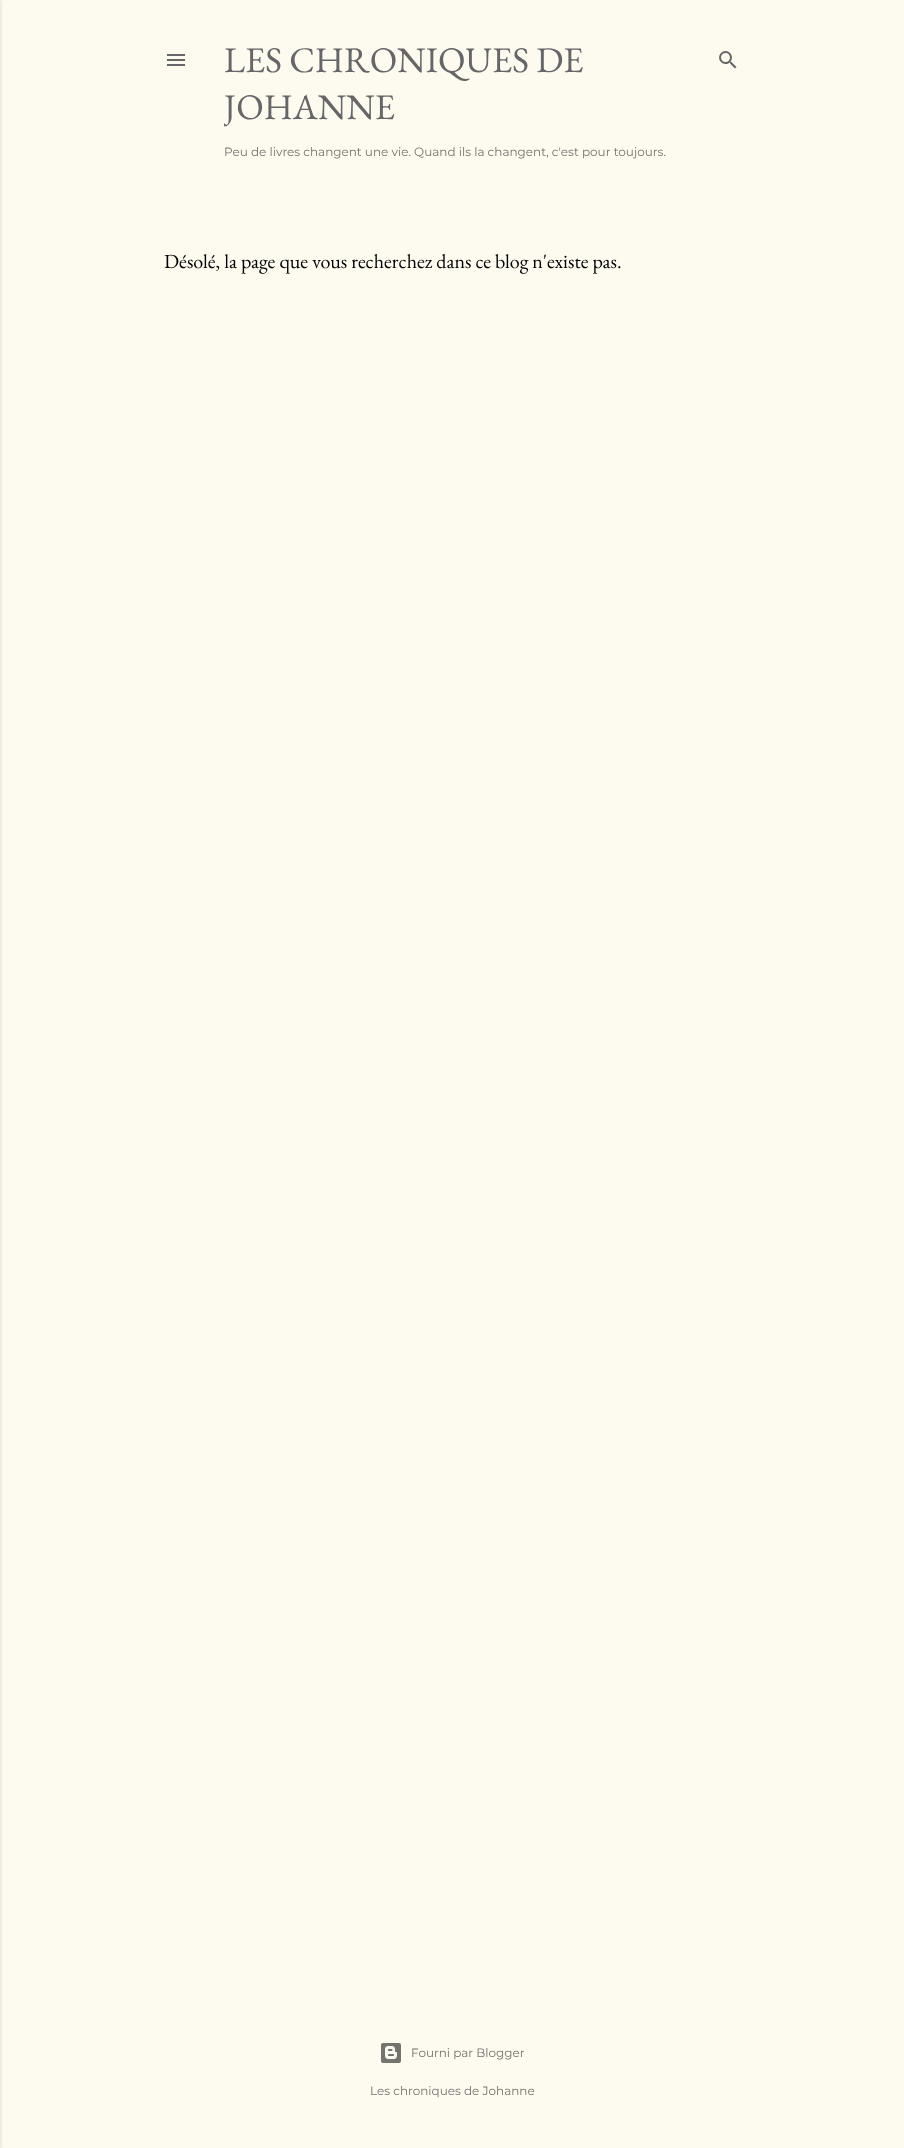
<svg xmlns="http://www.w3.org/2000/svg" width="904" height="2148">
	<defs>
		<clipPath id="clip1"><rect x="224" y="36" width="456" height="138" /></clipPath>
	</defs>
	<rect width="100%" height="100%" fill="#FDFAF0" />
	<rect x="-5" y="0" width="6" height="2148" fill="#000000" fill-opacity="0.1" filter="blur(1.5px)" />
	<image x="167" y="54" width="18" height="12" href="assets/img1.png" />
	<text x="224" y="72" font-family="EB Garamond" font-size="36" fill="#666666">LES CHRONIQUES DE</text>
	<g clip-path="url(#clip1)">
		<text x="224" y="119" font-family="EB Garamond" font-size="36" fill="#666666">JOHANNE</text>
	</g>
	<text x="224" y="156" font-family="Montserrat" font-size="12" fill="#74736E">Peu de livres changent une vie. Quand ils la changent, c'est pour toujours.</text>
	<image x="719" y="51" width="18" height="18" href="assets/img2.png" />
	<text x="164" y="268" font-family="EB Garamond" font-size="20" fill="#000000">Désolé, la page que vous recherchez dans ce blog n'existe pas.</text>
	<image x="381" y="2043" width="20" height="20" href="assets/img3.png" />
	<g font-family="Montserrat" font-size="12" fill="#74736E">
		<text x="411" y="2057">Fourni par Blogger</text>
		<text x="370" y="2095">Les chroniques de Johanne</text>
	</g>
</svg>
